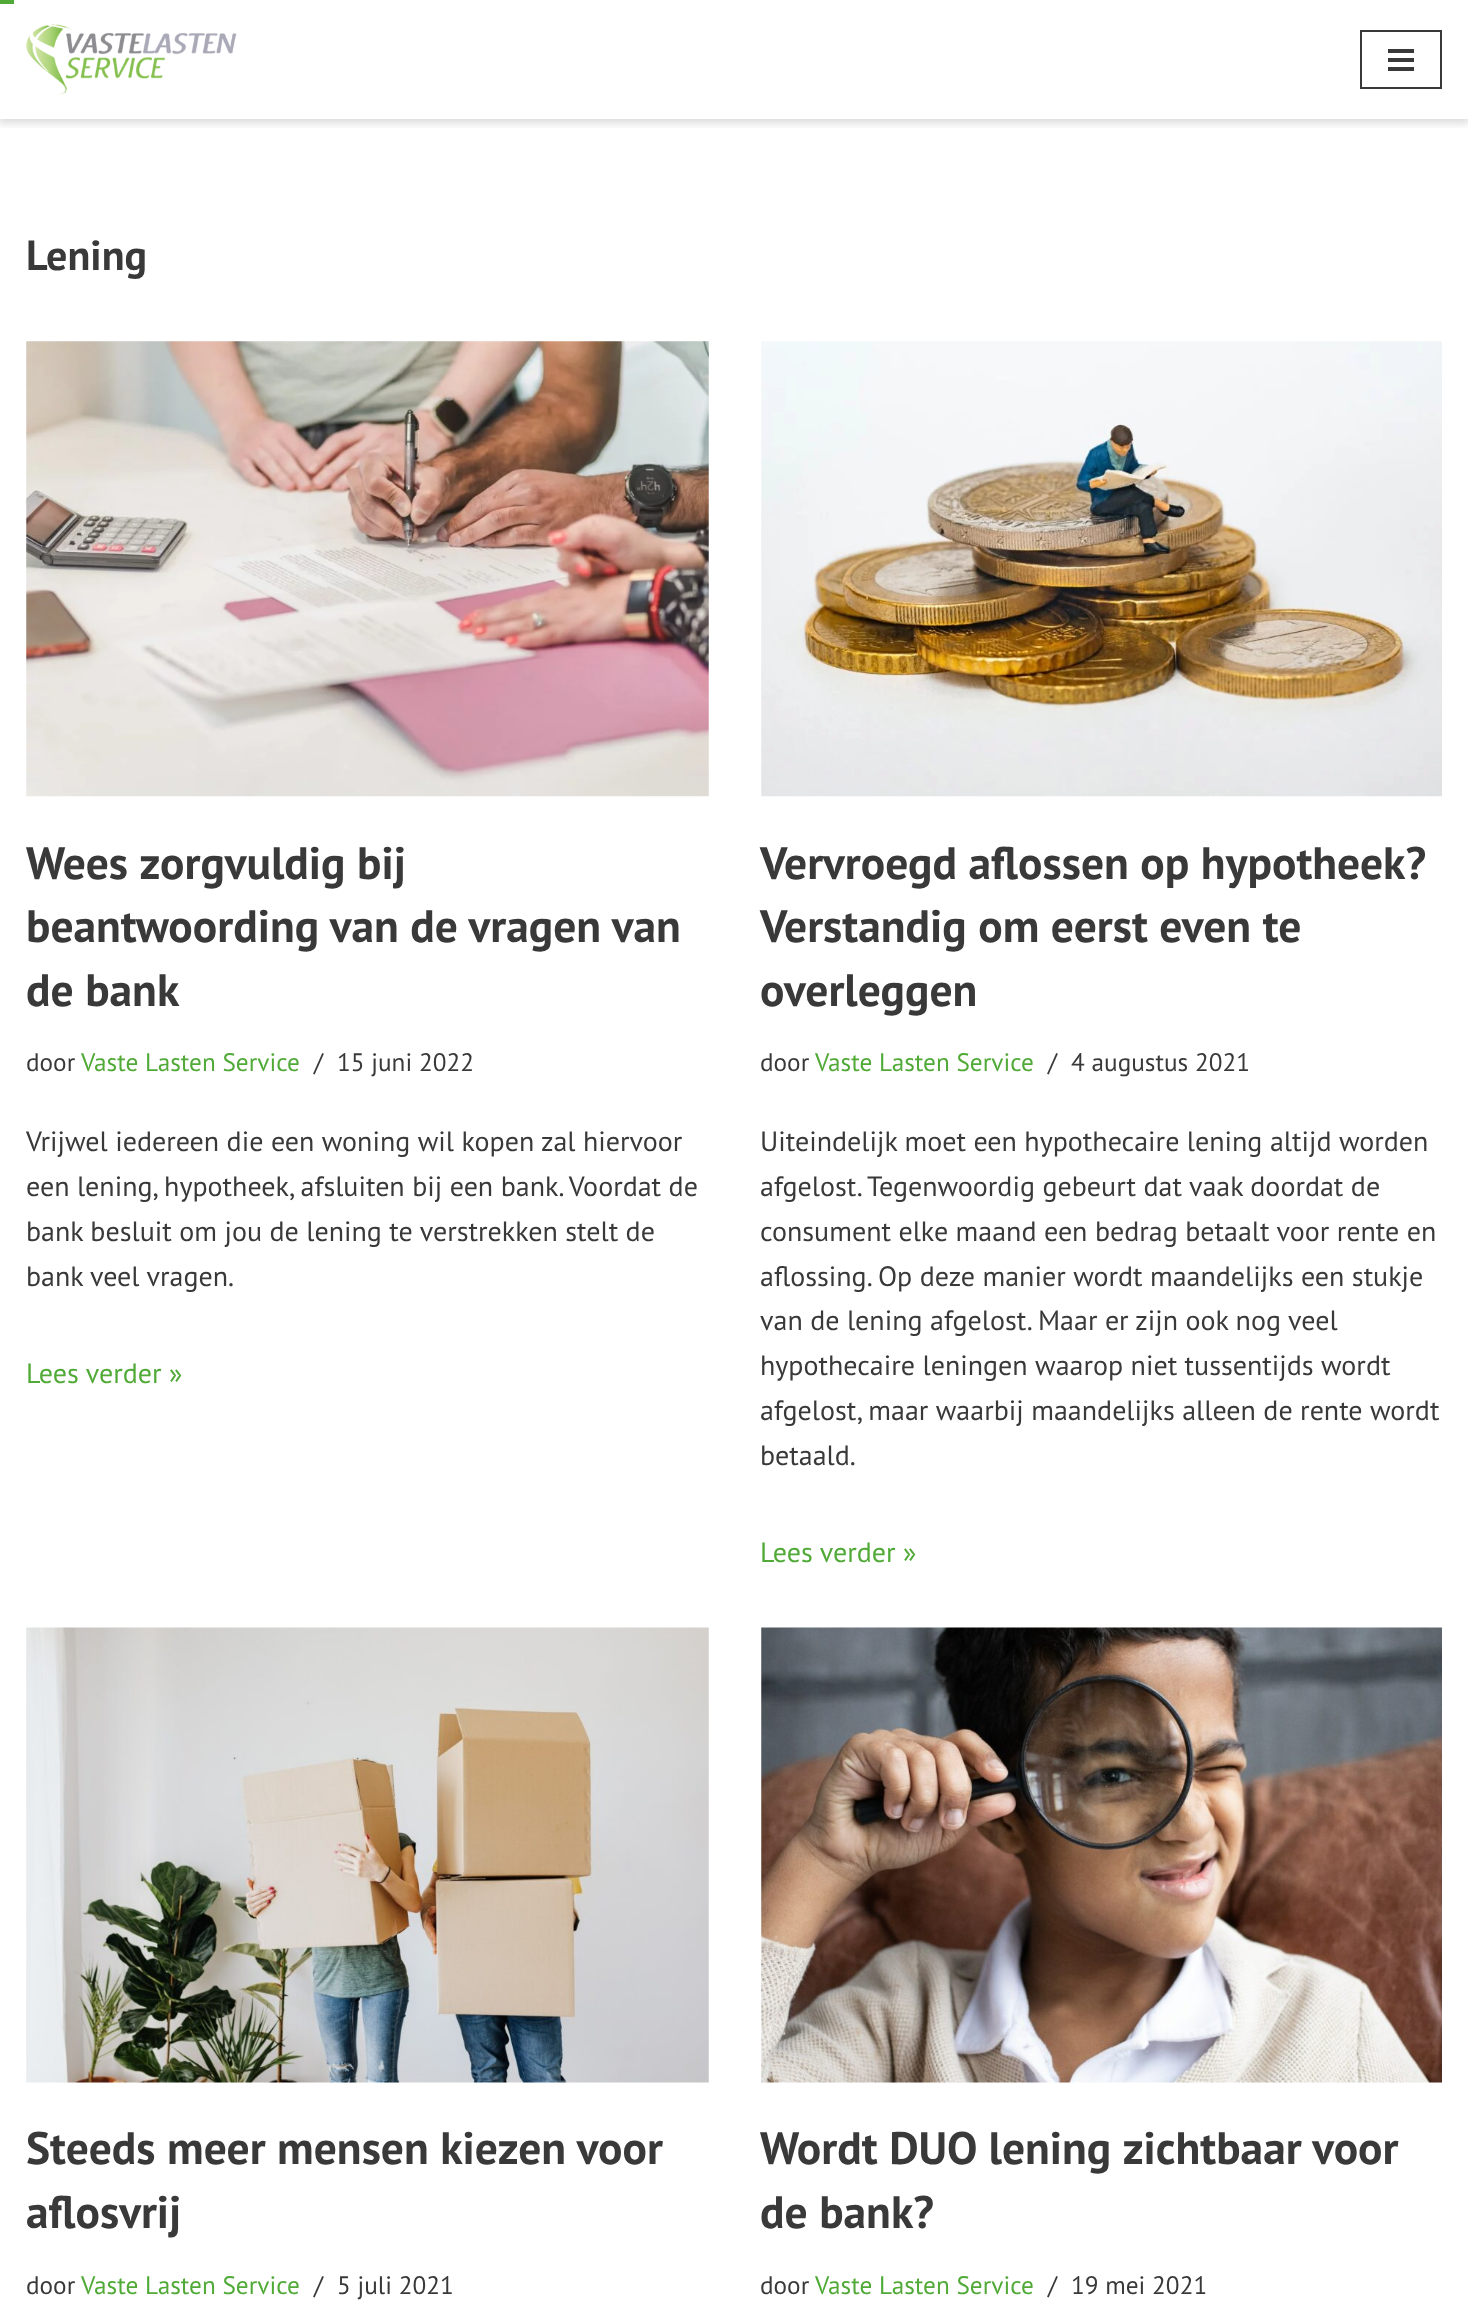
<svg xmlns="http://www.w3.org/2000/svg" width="1468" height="2302">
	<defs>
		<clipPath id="clip1"><rect x="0" y="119" width="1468" height="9" /></clipPath>
	</defs>
	<rect width="100%" height="100%" fill="#FFFFFF" />
	<g clip-path="url(#clip1)">
		<rect x="-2" y="0" width="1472" height="123" fill="#000000" fill-opacity="0.15" filter="blur(4.5px)" />
	</g>
	<rect x="0" y="0" width="14" height="4" fill="#51AA38" />
	<image x="26" y="24" width="211" height="71" href="assets/img1.png" />
	<rect x="1361" y="31" width="80" height="57" fill="none" stroke="#393939" stroke-width="2" />
	<rect x="1388" y="49" width="26" height="4" fill="#393939" />
	<rect x="1388" y="58" width="26" height="4" fill="#393939" />
	<rect x="1388" y="67" width="26" height="4" fill="#393939" />
	<text x="26" y="270" font-family="PT Sans" font-size="42" font-weight="700" fill="#393939">Lening</text>
	<image x="26" y="341" width="683" height="456" href="assets/img2.png" />
	<g font-family="PT Sans" font-size="45.5" font-weight="700" fill="#393939">
		<text x="26" y="879">Wees zorgvuldig bij</text>
		<text x="26" y="942">beantwoording van de vragen van</text>
		<text x="26" y="1006">de bank</text>
	</g>
	<text x="26" y="1071" font-family="PT Sans" font-size="25.25" fill="#393939">door</text>
	<text x="81" y="1071" font-family="PT Sans" font-size="25.25" fill="#51AA38">Vaste Lasten Service</text>
	<g font-family="PT Sans" font-size="25.25" fill="#393939">
		<text x="314" y="1071">/</text>
		<text x="337" y="1071">15 juni 2022</text>
	</g>
	<g font-family="PT Sans" font-size="28" fill="#393939">
		<text x="26" y="1151">Vrijwel iedereen die een woning wil kopen zal hiervoor</text>
		<text x="26" y="1196">een lening, hypotheek, afsluiten bij een bank. Voordat de</text>
		<text x="26" y="1241">bank besluit om jou de lening te verstrekken stelt de</text>
		<text x="26" y="1286">bank veel vragen.</text>
	</g>
	<text x="26" y="1383" font-family="PT Sans" font-size="28" fill="#51AA38">Lees verder »</text>
	<image x="761" y="341" width="681" height="456" href="assets/img3.png" />
	<g font-family="PT Sans" font-size="45.5" font-weight="700" fill="#393939">
		<text x="760" y="879">Vervroegd aflossen op hypotheek?</text>
		<text x="760" y="942">Verstandig om eerst even te</text>
		<text x="760" y="1006">overleggen</text>
	</g>
	<text x="760" y="1071" font-family="PT Sans" font-size="25.25" fill="#393939">door</text>
	<text x="815" y="1071" font-family="PT Sans" font-size="25.25" fill="#51AA38">Vaste Lasten Service</text>
	<g font-family="PT Sans" font-size="25.25" fill="#393939">
		<text x="1048" y="1071">/</text>
		<text x="1071" y="1071">4 augustus 2021</text>
	</g>
	<g font-family="PT Sans" font-size="28" fill="#393939">
		<text x="760" y="1151">Uiteindelijk moet een hypothecaire lening altijd worden</text>
		<text x="760" y="1196">afgelost. Tegenwoordig gebeurt dat vaak doordat de</text>
		<text x="760" y="1241">consument elke maand een bedrag betaalt voor rente en</text>
		<text x="760" y="1286">aflossing. Op deze manier wordt maandelijks een stukje</text>
		<text x="760" y="1330">van de lening afgelost. Maar er zijn ook nog veel</text>
		<text x="760" y="1375">hypothecaire leningen waarop niet tussentijds wordt</text>
		<text x="760" y="1420">afgelost, maar waarbij maandelijks alleen de rente wordt</text>
		<text x="760" y="1465">betaald.</text>
	</g>
	<text x="760" y="1562" font-family="PT Sans" font-size="28" fill="#51AA38">Lees verder »</text>
	<image x="26" y="1627" width="683" height="456" href="assets/img4.png" />
	<g font-family="PT Sans" font-size="45.5" font-weight="700" fill="#393939">
		<text x="26" y="2164">Steeds meer mensen kiezen voor</text>
		<text x="26" y="2228">aflosvrij</text>
	</g>
	<text x="26" y="2294" font-family="PT Sans" font-size="25.25" fill="#393939">door</text>
	<text x="81" y="2294" font-family="PT Sans" font-size="25.25" fill="#51AA38">Vaste Lasten Service</text>
	<g font-family="PT Sans" font-size="25.25" fill="#393939">
		<text x="314" y="2294">/</text>
		<text x="337" y="2294">5 juli 2021</text>
	</g>
	<image x="761" y="1627" width="681" height="456" href="assets/img5.png" />
	<g font-family="PT Sans" font-size="45.5" font-weight="700" fill="#393939">
		<text x="760" y="2164">Wordt DUO lening zichtbaar voor</text>
		<text x="760" y="2228">de bank?</text>
	</g>
	<text x="760" y="2294" font-family="PT Sans" font-size="25.25" fill="#393939">door</text>
	<text x="815" y="2294" font-family="PT Sans" font-size="25.25" fill="#51AA38">Vaste Lasten Service</text>
	<g font-family="PT Sans" font-size="25.25" fill="#393939">
		<text x="1048" y="2294">/</text>
		<text x="1071" y="2294">19 mei 2021</text>
	</g>
</svg>
